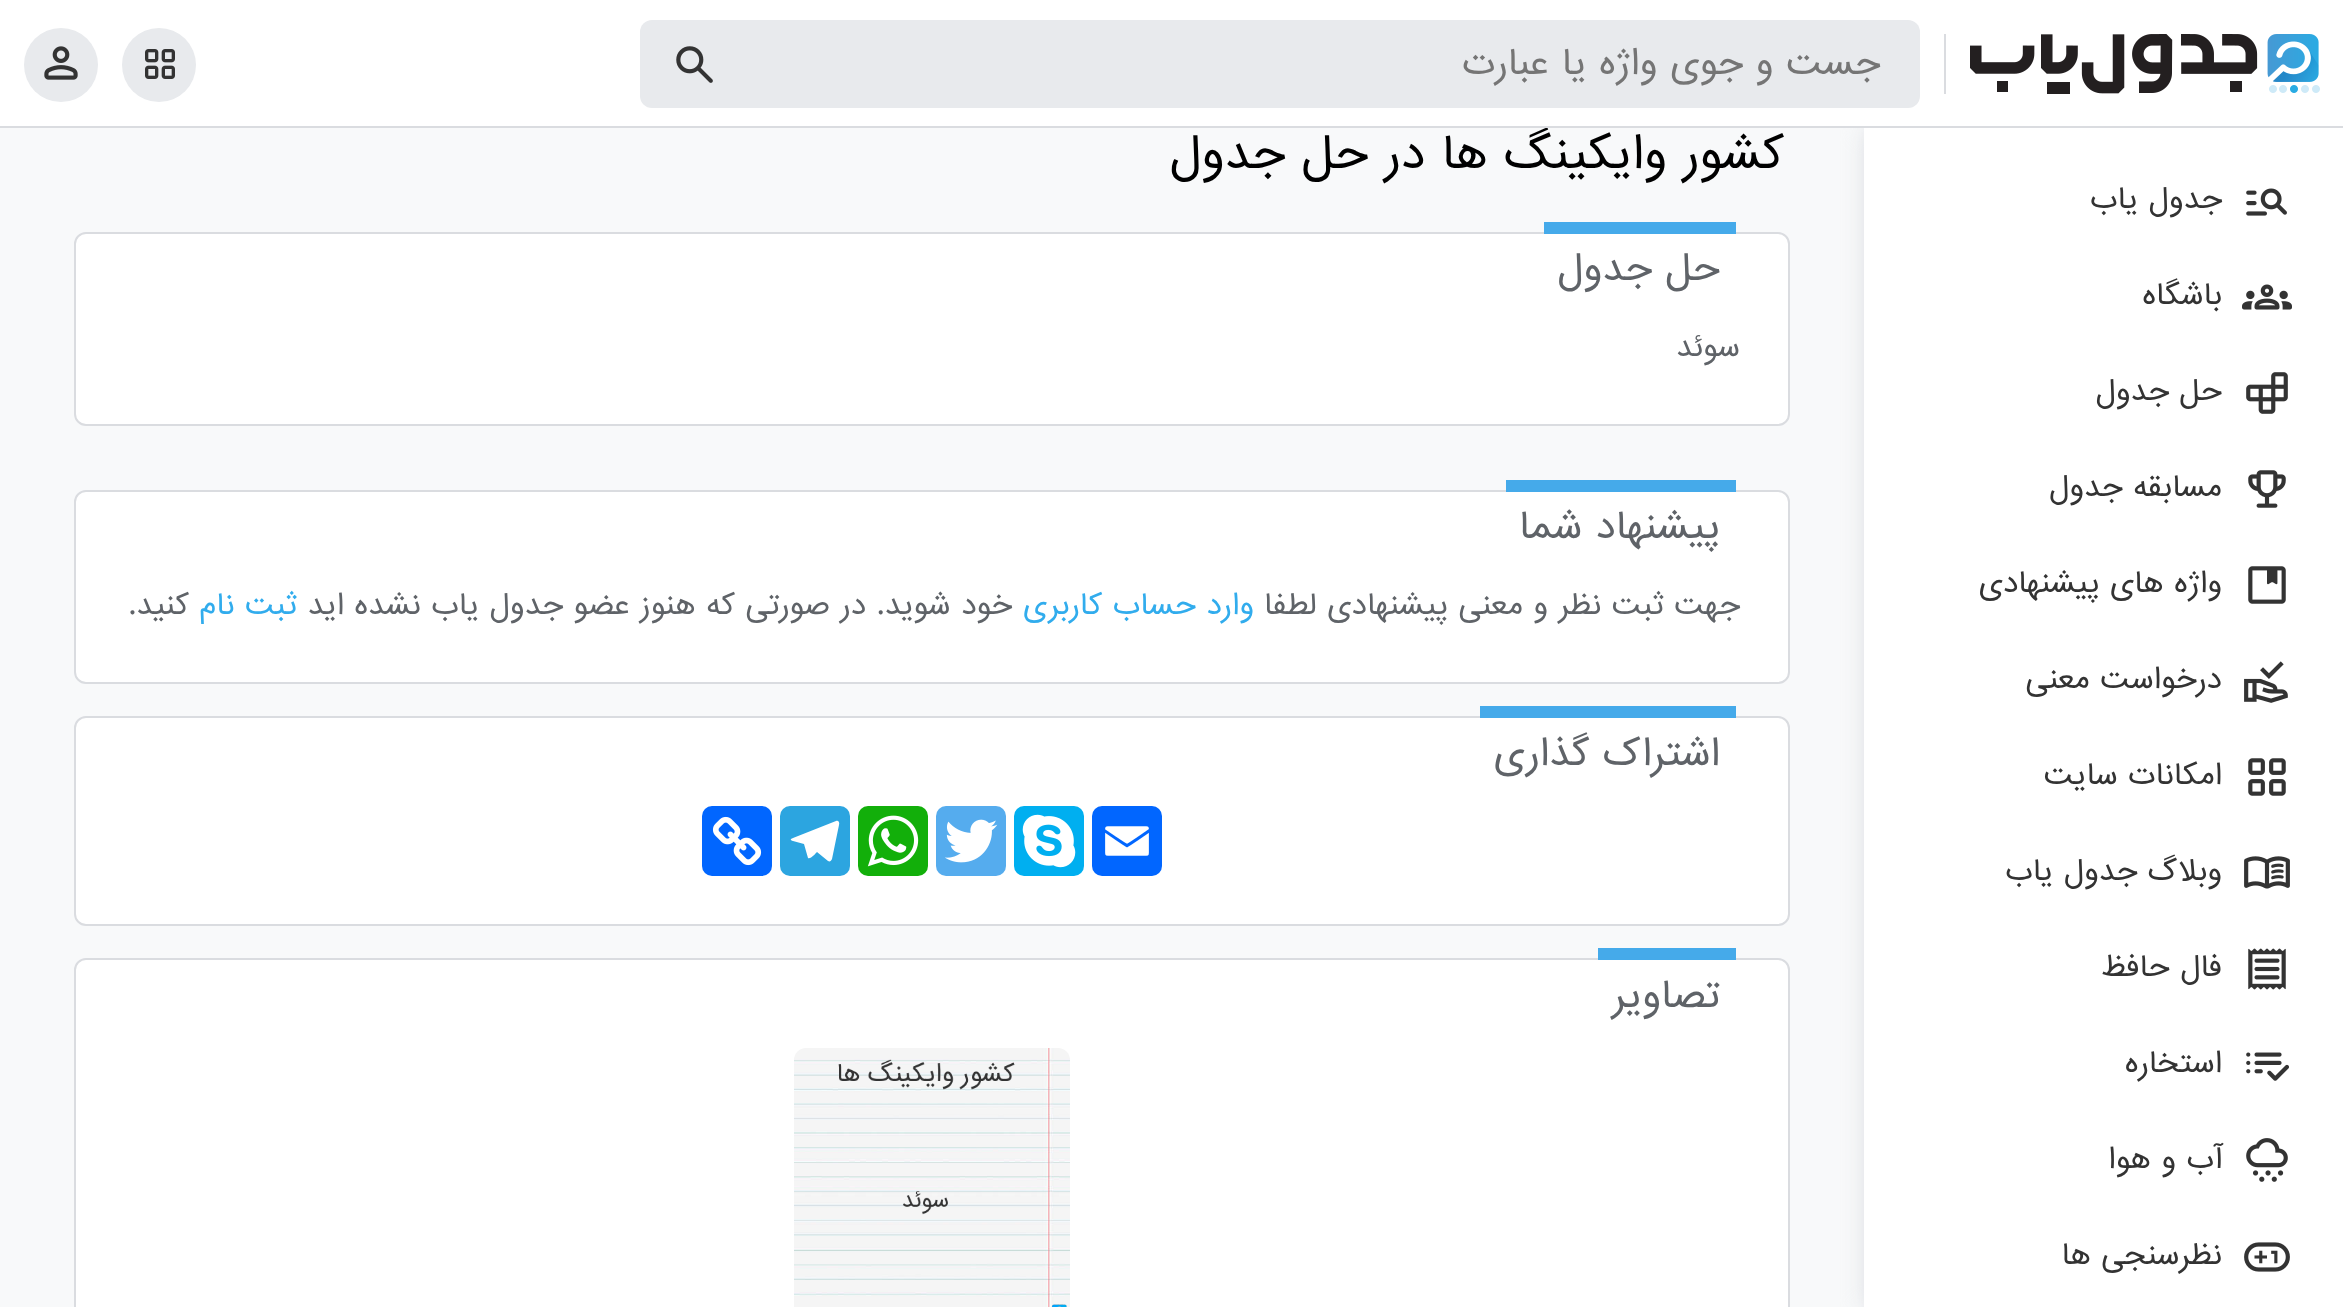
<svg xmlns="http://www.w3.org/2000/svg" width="2343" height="1307">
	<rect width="100%" height="100%" fill="#F8F9FA" />
	<rect x="1866" y="130" width="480" height="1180" fill="#DADCE0" filter="blur(12px)" />
	<rect x="0" y="0" width="2343" height="126" fill="#FFFFFF" />
	<text x="1784" y="168" font-family="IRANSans" font-size="44" direction="rtl" fill="#000000">کشور وایکینگ ها در حل جدول</text>
	<rect x="0" y="126" width="2343" height="2" fill="#DADCE0" />
	<rect x="1944" y="34" width="2" height="60" fill="#DADCE0" />
	<image x="1970" y="34" width="350" height="60" href="assets/img1.png" />
	<rect x="640" y="20" width="1280" height="88" rx="12" fill="#E8EAED" />
	<text x="1880" y="74" font-family="IRANSans" font-size="34" direction="rtl" fill="#757575">جست و جوی واژه یا عبارت</text>
	<image x="676" y="46" width="37" height="37" href="assets/img2.png" />
	<circle cx="159" cy="65" r="37" fill="#E8EAED" />
	<image x="145" y="49" width="30" height="30" href="assets/img3.png" />
	<circle cx="61" cy="65" r="37" fill="#E8EAED" />
	<image x="44" y="46" width="34" height="34" href="assets/img4.png" />
	<rect x="1864" y="128" width="479" height="1179" fill="#FFFFFF" />
	<image x="2246" y="188" width="41" height="28" href="assets/img5.png" />
	<text x="2222" y="208" font-family="IRANSans" font-size="28" direction="rtl" fill="#333333">جدول یاب</text>
	<image x="2242" y="284" width="50" height="26" href="assets/img6.png" />
	<text x="2222" y="304" font-family="IRANSans" font-size="28" direction="rtl" fill="#333333">باشگاه</text>
	<image x="2246" y="372" width="42" height="42" href="assets/img7.png" />
	<text x="2222" y="400" font-family="IRANSans" font-size="28" direction="rtl" fill="#333333">حل جدول</text>
	<image x="2248" y="470" width="38" height="38" href="assets/img8.png" />
	<text x="2222" y="496" font-family="IRANSans" font-size="28" direction="rtl" fill="#333333">مسابقه جدول</text>
	<image x="2248" y="566" width="38" height="38" href="assets/img9.png" />
	<text x="2222" y="592" font-family="IRANSans" font-size="28" direction="rtl" fill="#333333">واژه های پیشنهادی</text>
	<image x="2244" y="661" width="44" height="42" href="assets/img10.png" />
	<text x="2222" y="688" font-family="IRANSans" font-size="28" direction="rtl" fill="#333333">درخواست معنی</text>
	<image x="2248" y="758" width="38" height="38" href="assets/img11.png" />
	<text x="2222" y="784" font-family="IRANSans" font-size="28" direction="rtl" fill="#333333">امکانات سایت</text>
	<image x="2244" y="856" width="46" height="33" href="assets/img12.png" />
	<text x="2222" y="880" font-family="IRANSans" font-size="28" direction="rtl" fill="#333333">وبلاگ جدول یاب</text>
	<image x="2248" y="948" width="38" height="42" href="assets/img13.png" />
	<text x="2222" y="976" font-family="IRANSans" font-size="28" direction="rtl" fill="#333333">فال حافظ</text>
	<image x="2246" y="1052" width="43" height="29" href="assets/img14.png" />
	<text x="2222" y="1072" font-family="IRANSans" font-size="28" direction="rtl" fill="#333333">استخاره</text>
	<image x="2246" y="1138" width="42" height="44" href="assets/img15.png" />
	<text x="2222" y="1168" font-family="IRANSans" font-size="28" direction="rtl" fill="#333333">آب و هوا</text>
	<image x="2244" y="1242" width="46" height="30" href="assets/img16.png" />
	<text x="2222" y="1264" font-family="IRANSans" font-size="28" direction="rtl" fill="#333333">نظرسنجی ها</text>
	<rect x="75" y="233" width="1714" height="192" rx="11" fill="#FFFFFF" stroke="#DADCE0" stroke-width="2" />
	<rect x="1544" y="222" width="192" height="12" fill="#45AAEA" />
	<text x="1720" y="280" font-family="IRANSans" font-size="36" direction="rtl" fill="#5F6368">حل جدول</text>
	<text x="1740" y="356" font-family="IRANSans" font-size="28" direction="rtl" fill="#5F6368">سوئد</text>
	<rect x="75" y="491" width="1714" height="192" rx="11" fill="#FFFFFF" stroke="#DADCE0" stroke-width="2" />
	<rect x="1506" y="480" width="230" height="12" fill="#45AAEA" />
	<text x="1720" y="538" font-family="IRANSans" font-size="36" direction="rtl" fill="#5F6368">پیشنهاد شما</text>
	<text x="1740" y="614" font-family="IRANSans" font-size="28" direction="rtl" fill="#5F6368">جهت ثبت نظر و معنی پیشنهادی لطفا</text>
	<text x="1254" y="614" font-family="IRANSans" font-size="28" direction="rtl" fill="#31ACED">وارد حساب کاربری</text>
	<text x="1012" y="614" font-family="IRANSans" font-size="28" direction="rtl" fill="#5F6368">خود شوید. در صورتی که هنوز عضو جدول یاب نشده اید</text>
	<text x="297" y="614" font-family="IRANSans" font-size="28" direction="rtl" fill="#31ACED">ثبت نام</text>
	<text x="189" y="614" font-family="IRANSans" font-size="28" direction="rtl" fill="#5F6368">کنید.</text>
	<rect x="75" y="717" width="1714" height="208" rx="11" fill="#FFFFFF" stroke="#DADCE0" stroke-width="2" />
	<rect x="1480" y="706" width="256" height="12" fill="#45AAEA" />
	<text x="1720" y="765" font-family="IRANSans" font-size="36" direction="rtl" fill="#5F6368">اشتراک گذاری</text>
	<rect x="1092" y="806" width="70" height="70" rx="10" fill="#0166FF" />
	<image x="1105" y="826" width="44" height="30" href="assets/img17.png" />
	<rect x="1014" y="806" width="70" height="70" rx="10" fill="#00AFF0" />
	<image x="1022" y="814" width="54" height="54" href="assets/img18.png" />
	<rect x="936" y="806" width="70" height="70" rx="10" fill="#55ACEE" />
	<image x="945" y="819" width="53" height="44" href="assets/img19.png" />
	<rect x="858" y="806" width="70" height="70" rx="10" fill="#12AF0A" />
	<image x="867" y="815" width="52" height="52" href="assets/img20.png" />
	<rect x="780" y="806" width="70" height="70" rx="10" fill="#2CA5E0" />
	<path d="M836 821L793 838C790 839 790 840 793 841L804 844L808 858C810 860 816 853 817 852L828 861C830 862 831 861 832 859L839 825C840 822 838 820 836 821Z" fill="#FFFFFF" />
	<rect x="702" y="806" width="70" height="70" rx="10" fill="#0166FF" />
	<image x="712" y="816" width="50" height="50" href="assets/img21.png" />
	<rect x="75" y="959" width="1714" height="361" rx="11" fill="#FFFFFF" stroke="#DADCE0" stroke-width="2" />
	<rect x="1598" y="948" width="138" height="12" fill="#45AAEA" />
	<text x="1720" y="1007" font-family="IRANSans" font-size="36" direction="rtl" fill="#5F6368">تصاویر</text>
	<image x="794" y="1048" width="276" height="259" href="assets/img22.png" />
</svg>
